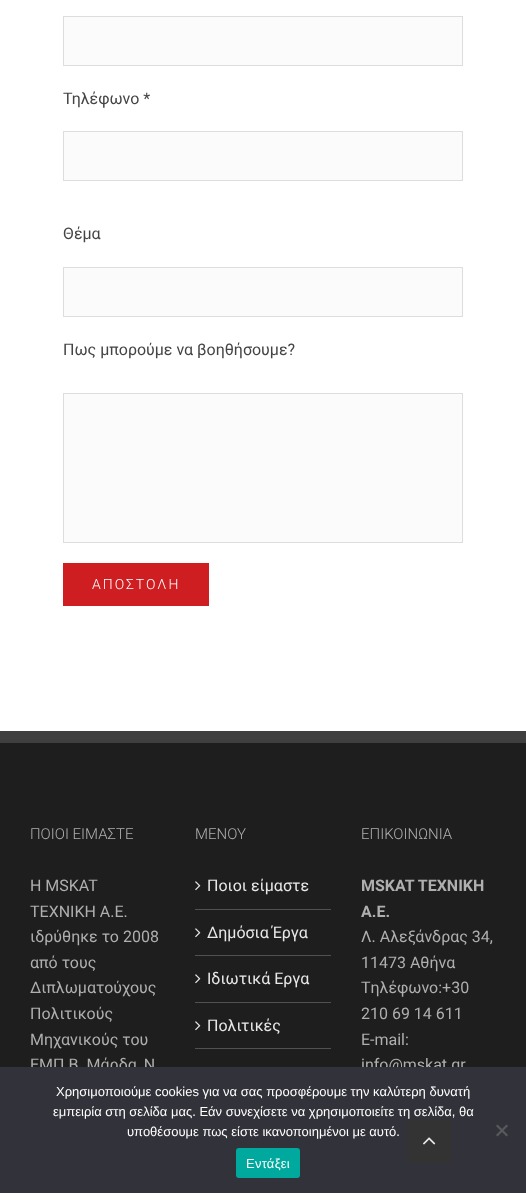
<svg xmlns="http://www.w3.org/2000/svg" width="526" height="1193">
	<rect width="100%" height="100%" fill="#FFFFFF" />
	<rect x="63.5" y="16.5" width="399" height="49" fill="#FBFBFB" stroke="#DDDDDD" />
	<text x="63" y="104" font-family="Roboto" font-size="16" fill="#444444">Τηλέφωνο *</text>
	<rect x="63.5" y="131.5" width="399" height="49" fill="#FBFBFB" stroke="#DDDDDD" />
	<text x="63" y="239" font-family="Roboto" font-size="16" fill="#444444">Θέμα</text>
	<rect x="63.5" y="267.5" width="399" height="49" fill="#FBFBFB" stroke="#DDDDDD" />
	<text x="63" y="355" font-family="Roboto" font-size="16" fill="#444444">Πως μπορούμε να βοηθήσουμε?</text>
	<rect x="63.5" y="393.5" width="399" height="149" fill="#FBFBFB" stroke="#DDDDDD" />
	<rect x="63" y="563" width="146" height="43" fill="#CE1E21" />
	<text x="92" y="589" font-family="Roboto" font-size="14" font-weight="300" letter-spacing="2" fill="#FFFFFF">ΑΠΟΣΤΟΛΗ</text>
	<rect x="0" y="743" width="526" height="324" fill="#1E1E1E" />
	<rect x="0" y="731" width="526" height="12" fill="#3F3F3F" />
	<text x="30" y="839" font-family="Roboto" font-size="15" font-weight="300" fill="#AFAFAF">ΠΟΙΟΙ ΕΙΜΑΣΤΕ</text>
	<g font-family="Roboto" font-size="16" fill="#AFAFAF">
		<text x="30" y="891">Η MSKAT</text>
		<text x="30" y="917">TEXNIKH A.E.</text>
		<text x="30" y="942">ιδρύθηκε το 2008</text>
		<text x="30" y="968">από τους</text>
		<text x="30" y="993">Διπλωματούχους</text>
		<text x="30" y="1019">Πολιτικούς</text>
		<text x="30" y="1045">Μηχανικούς του</text>
		<text x="30" y="1070">ΕΜΠ Β. Μάρδα, Ν</text>
	</g>
	<text x="195" y="839" font-family="Roboto" font-size="15" font-weight="300" fill="#AFAFAF">ΜΕΝΟΥ</text>
	<rect x="195" y="909" width="136" height="1" fill="#505152" />
	<image x="195" y="881" width="6" height="10" href="assets/img1.png" />
	<text x="207" y="891" font-family="Roboto" font-size="16" fill="#E8E8E8">Ποιοι είμαστε</text>
	<rect x="195" y="955" width="136" height="1" fill="#505152" />
	<image x="195" y="928" width="6" height="10" href="assets/img1.png" />
	<text x="207" y="938" font-family="Roboto" font-size="16" fill="#E8E8E8">Δημόσια Έργα</text>
	<rect x="195" y="1002" width="136" height="1" fill="#505152" />
	<image x="195" y="974" width="6" height="10" href="assets/img1.png" />
	<text x="207" y="984" font-family="Roboto" font-size="16" fill="#E8E8E8">Ιδιωτικά Εργα</text>
	<rect x="195" y="1048" width="136" height="1" fill="#505152" />
	<image x="195" y="1021" width="6" height="10" href="assets/img1.png" />
	<text x="207" y="1031" font-family="Roboto" font-size="16" fill="#E8E8E8">Πολιτικές</text>
	<text x="361" y="839" font-family="Roboto" font-size="15" font-weight="300" fill="#AFAFAF">ΕΠΙΚΟΙΝΩΝΙΑ</text>
	<g font-family="Roboto" font-size="16" font-weight="700" fill="#AFAFAF">
		<text x="361" y="891">MSKAT TEXNIKH</text>
		<text x="361" y="917">A.E.</text>
	</g>
	<g font-family="Roboto" font-size="16" fill="#AFAFAF">
		<text x="361" y="942">Λ. Αλεξάνδρας 34,</text>
		<text x="361" y="968">11473 Αθήνα</text>
		<text x="361" y="993">Tηλέφωνο:+30</text>
		<text x="361" y="1019">210 69 14 611</text>
		<text x="361" y="1045">E-mail:</text>
		<text x="361" y="1070">info@mskat.gr</text>
	</g>
	<rect x="0" y="1067" width="526" height="126" fill="#32323A" />
	<g font-family="Liberation Sans" font-size="13" fill="#FFFFFF">
		<text x="56" y="1096">Χρησιμοποιούμε cookies για να σας προσφέρουμε την καλύτερη δυνατή</text>
		<text x="53" y="1116">εμπειρία στη σελίδα μας. Εάν συνεχίσετε να χρησιμοποιείτε τη σελίδα, θα</text>
		<text x="127" y="1136">υποθέσουμε πως είστε ικανοποιημένοι με αυτό.</text>
	</g>
	<path d="M506.5 1124.5L508 1126L497.5 1136.5L496 1135Z" fill="#59595D" />
	<path d="M496 1126L497.5 1124.5L508 1135L506.5 1136.5Z" fill="#59595D" />
	<rect x="236" y="1148" width="64" height="30" rx="3" fill="#00A99D" />
	<text x="246" y="1168" font-family="Liberation Sans" font-size="13" letter-spacing="0.25" fill="#FFFFFF">Εντάξει</text>
	<rect x="407" y="1119" width="44" height="44" rx="4" fill="#333334" />
	<image x="423" y="1137" width="13" height="8" href="assets/img2.png" />
</svg>
